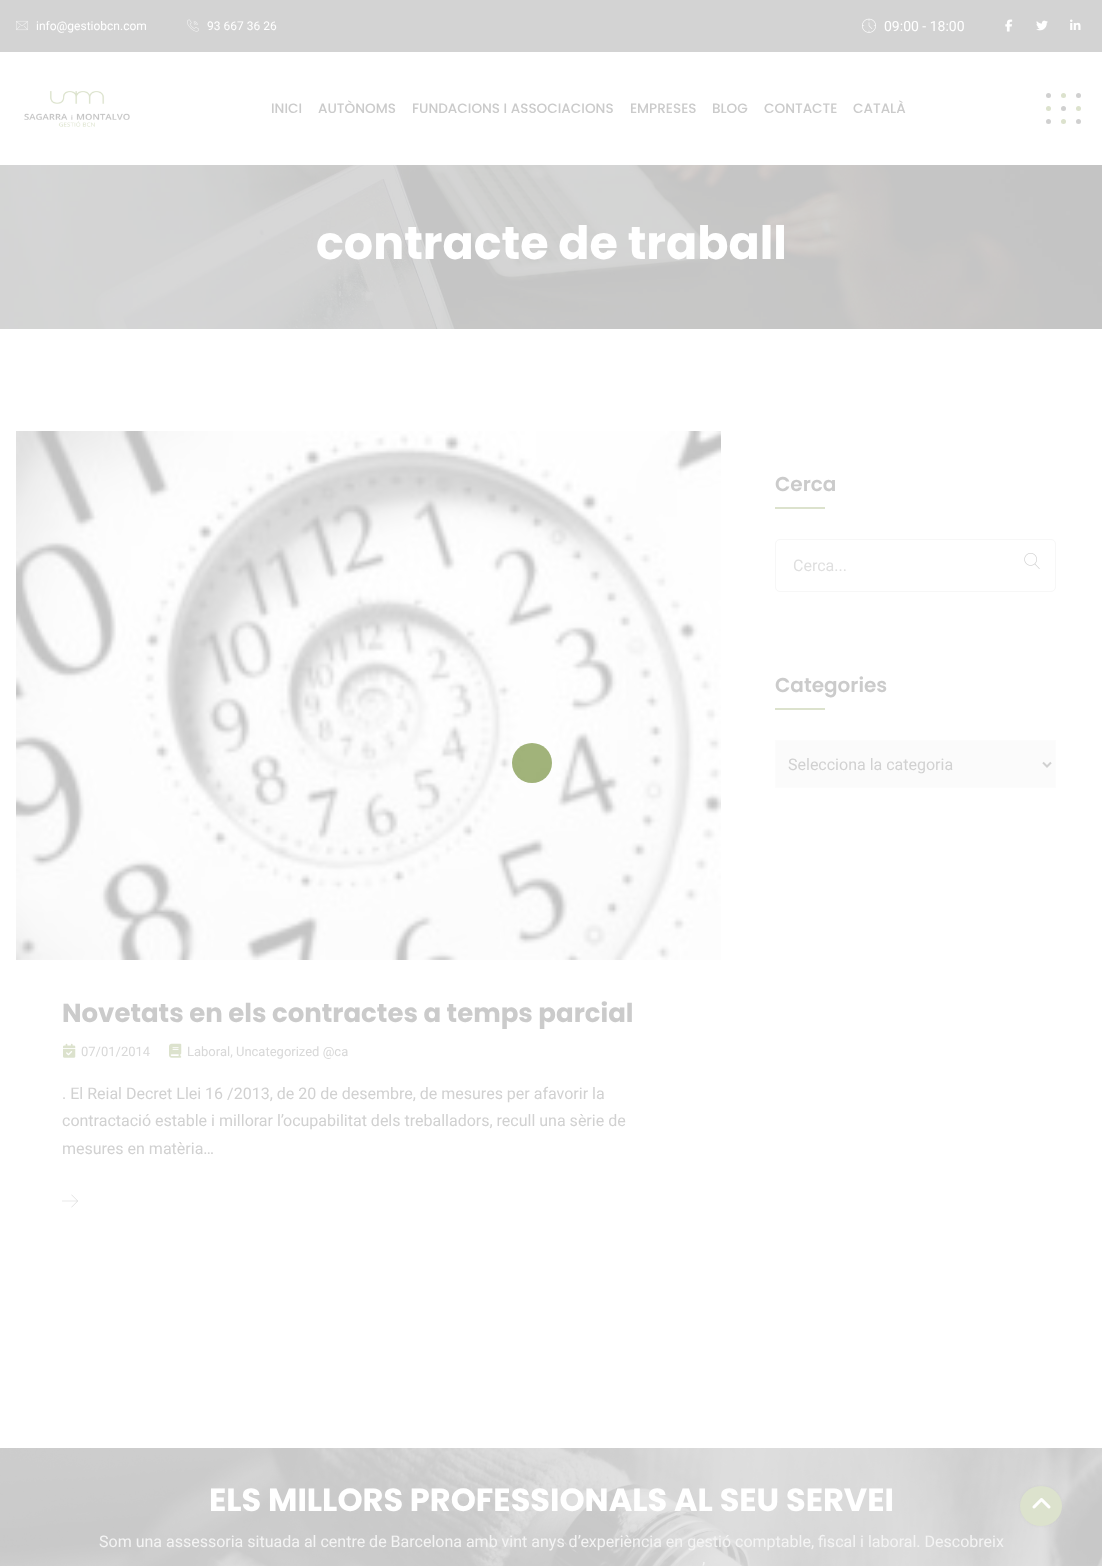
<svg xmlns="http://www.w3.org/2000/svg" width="1102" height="1566">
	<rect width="100%" height="100%" fill="#D3D3D3" />
	<image x="16" y="20" width="12" height="11" href="assets/img1.png" />
	<text x="36" y="30" font-family="Roboto" font-size="12" fill="#FFFFFF">info@gestiobcn.com</text>
	<image x="187" y="19" width="12" height="13" href="assets/img2.png" />
	<text x="207" y="30" font-family="Roboto" font-size="12" fill="#FFFFFF">93 667 36 26</text>
	<image x="862" y="18" width="14" height="15" href="assets/img3.png" />
	<text x="884" y="31" font-family="Roboto" font-size="14" fill="#FFFFFF">09:00 - 18:00</text>
	<image x="1005" y="19" width="8" height="13" href="assets/img4.png" />
	<image x="1036" y="20" width="12" height="11" href="assets/img5.png" />
	<image x="1070" y="19" width="11" height="11" href="assets/img6.png" />
	<rect x="0" y="52" width="1102" height="113" fill="#FFFFFF" />
	<image x="24" y="91" width="106" height="36" href="assets/img7.png" />
	<g font-family="Poppins" font-size="13.6" font-weight="500" fill="#CBCBCB">
		<text x="271" y="113">INICI</text>
		<text x="318" y="113">AUTÒNOMS</text>
		<text x="412" y="113">FUNDACIONS I ASSOCIACIONS</text>
		<text x="630" y="113">EMPRESES</text>
		<text x="712" y="113">BLOG</text>
		<text x="764" y="113">CONTACTE</text>
		<text x="853" y="113">CATALÀ</text>
	</g>
	<circle cx="1048.5" cy="95.5" r="2.5" fill="#D0D0D0" />
	<circle cx="1063.5" cy="95.5" r="2.5" fill="#DCE2CD" />
	<circle cx="1078.5" cy="95.5" r="2.5" fill="#D0D0D0" />
	<circle cx="1048.5" cy="108.5" r="2.5" fill="#DCE2CD" />
	<circle cx="1063.5" cy="108.5" r="2.5" fill="#D0D0D0" />
	<circle cx="1078.5" cy="108.5" r="2.5" fill="#DCE2CD" />
	<circle cx="1048.5" cy="121.5" r="2.5" fill="#D0D0D0" />
	<circle cx="1063.5" cy="121.5" r="2.5" fill="#DCE2CD" />
	<circle cx="1078.5" cy="121.5" r="2.5" fill="#D0D0D0" />
	<rect x="0" y="329" width="1102" height="1119" fill="#FFFFFF" />
	<image x="0" y="165" width="1102" height="164" href="assets/img8.png" />
	<text x="316" y="259" font-family="Poppins" font-size="46" font-weight="700" fill="#FFFFFF">contracte de traball</text>
	<text x="775" y="491" font-family="Poppins" font-size="20" font-weight="600" fill="#CBCBCB">Cerca</text>
	<rect x="775" y="507" width="50" height="2" fill="#DCE2CD" />
	<rect x="775.5" y="539.5" width="280" height="52" rx="4.5" fill="none" stroke="#F7F7F7" />
	<text x="793" y="571" font-family="Roboto" font-size="16" fill="#DFDFDF">Cerca...</text>
	<image x="1024" y="553" width="16" height="16" href="assets/img9.png" />
	<text x="775" y="692" font-family="Poppins" font-size="20" font-weight="600" fill="#CBCBCB">Categories</text>
	<rect x="775" y="708" width="50" height="2" fill="#DCE2CD" />
	<rect x="775.5" y="740.5" width="280" height="47" fill="#FBFBFB" stroke="#FCFCFC" />
	<path d="M1043 762.5L1047 766.5L1051 762.5" fill="none" stroke="#D1D1D1" stroke-width="2" />
	<text x="788" y="770" font-family="Roboto" font-size="16" fill="#D1D1D1">Selecciona la categoria</text>
	<image x="16" y="431" width="705" height="529" href="assets/img10.png" />
	<text x="62" y="1022" font-family="Poppins" font-size="26" font-weight="700" fill="#CBCBCB">Novetats en els contractes a temps parcial</text>
	<image x="63" y="1043" width="13" height="15" href="assets/img11.png" />
	<text x="81" y="1056" font-family="Roboto" font-size="13" fill="#D8D8D8">07/01/2014</text>
	<image x="169" y="1043" width="13" height="15" href="assets/img12.png" />
	<text x="187" y="1056" font-family="Roboto" font-size="13" fill="#D8D8D8">Laboral, Uncategorized @ca</text>
	<g font-family="Roboto" font-size="16" fill="#D1D1D1">
		<text x="62" y="1099">. El Reial Decret Llei 16 /2013, de 20 de desembre, de mesures per afavorir la</text>
		<text x="62" y="1126">contractació estable i millorar l’ocupabilitat dels treballadors, recull una sèrie de</text>
		<text x="62" y="1154">mesures en matèria…</text>
	</g>
	<image x="62" y="1194" width="16" height="14" href="assets/img13.png" />
	<image x="0" y="1448" width="1102" height="118" href="assets/img14.png" />
	<text x="209" y="1511" font-family="Poppins" font-size="32" font-weight="700" fill="#FFFFFF">ELS MILLORS PROFESSIONALS AL SEU SERVEI</text>
	<g font-family="Roboto" font-size="16" fill="#F4F4F4">
		<text x="99" y="1547">Som una assessoria situada al centre de Barcelona amb vint anys d’experiència en gestió comptable, fiscal i laboral. Descobreix</text>
		<text x="702" y="1574">’</text>
	</g>
	<circle cx="532" cy="763" r="20" fill="#668326" fill-opacity="0.61" />
	<rect x="1020" y="1486" width="42" height="40" rx="20" fill="#C4C4C4" fill-opacity="0.4" filter="blur(1px)" />
	<ellipse cx="1041" cy="1506" rx="21" ry="20" fill="#DCE2CD" />
	<image x="1032" y="1498" width="19" height="11" href="assets/img15.png" />
</svg>
